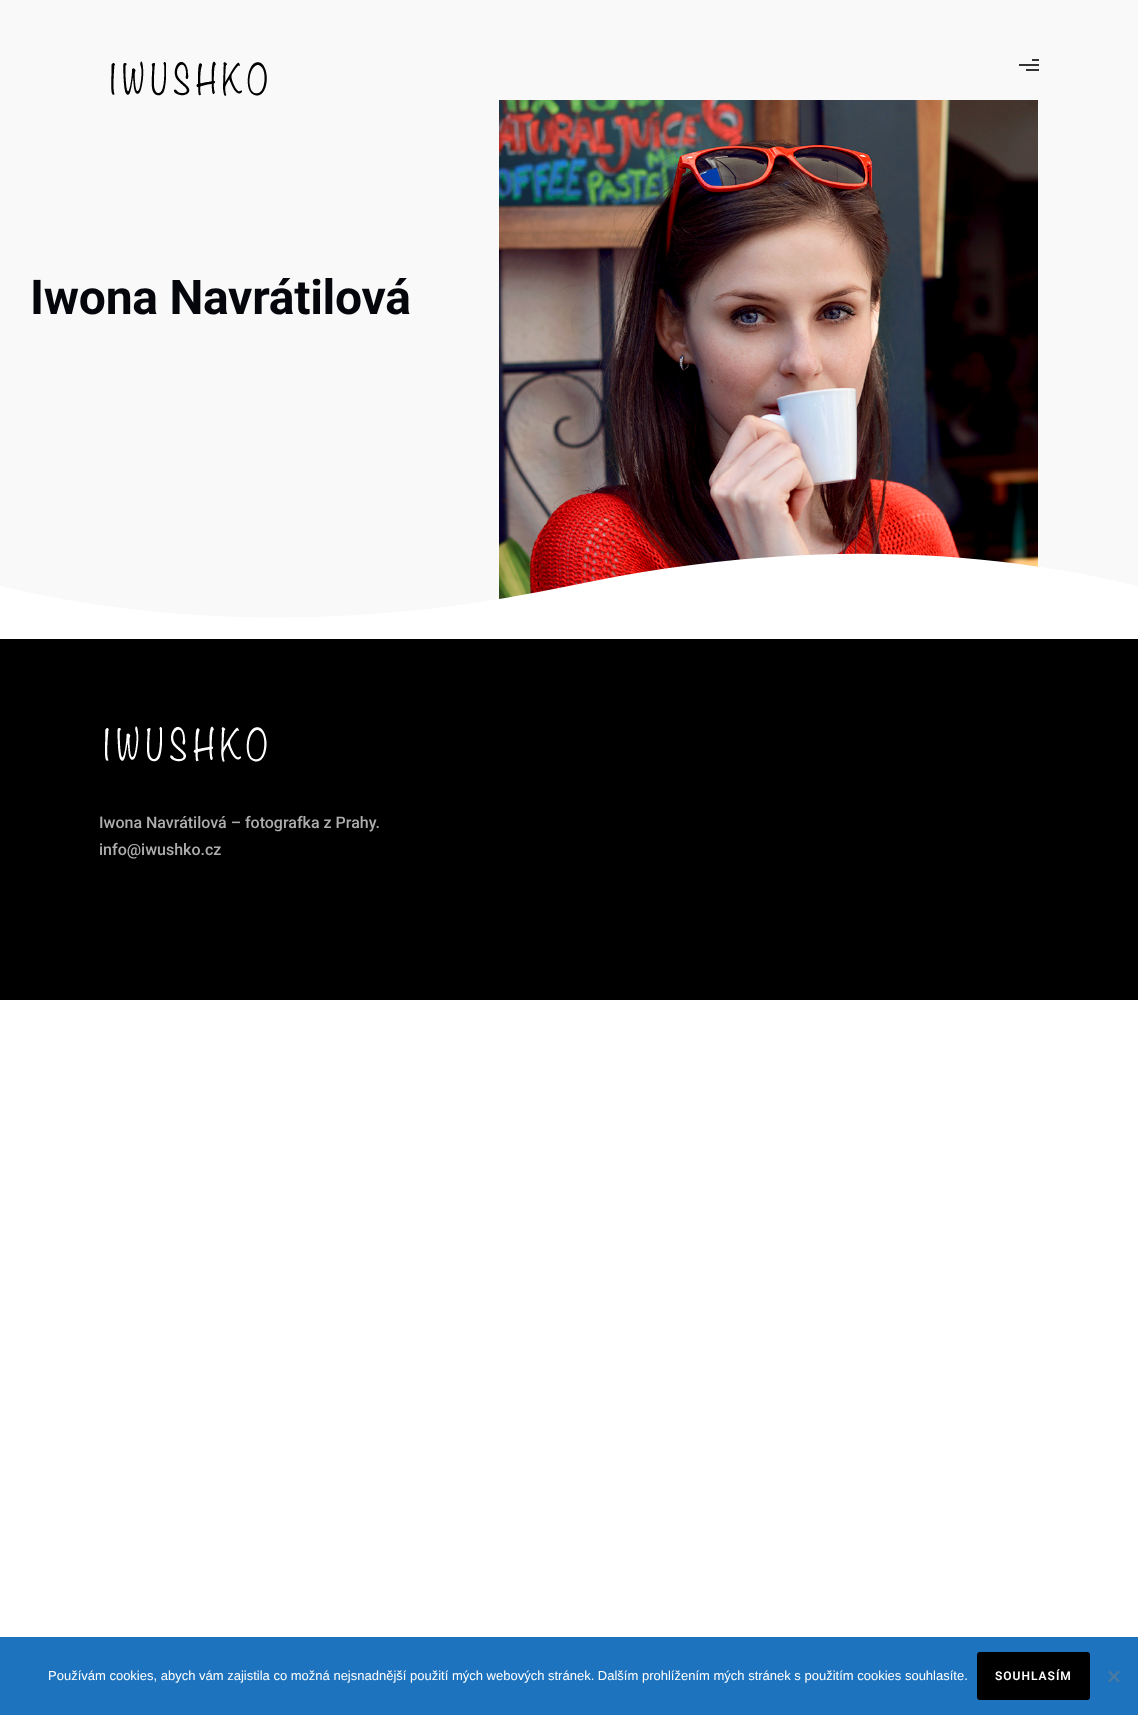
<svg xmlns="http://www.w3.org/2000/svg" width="1138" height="1715">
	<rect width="100%" height="100%" fill="#FFFFFF" />
	<rect x="0" y="0" width="1138" height="618" fill="#F9F9F9" />
	<image x="111" y="61" width="156" height="35" href="assets/img1.png" />
	<rect x="1032" y="59" width="7" height="2" fill="#333333" />
	<rect x="1019" y="64" width="20" height="2" fill="#333333" />
	<rect x="1026" y="69" width="13" height="2" fill="#333333" />
	<text x="30" y="314" font-family="Roboto" font-size="48" font-weight="700" letter-spacing="-0.25" fill="#04060C">Iwona Navrátilová</text>
	<image x="499" y="100" width="539" height="499" href="assets/img2.png" />
	<path d="M0 586C178 628 368 628 569 586C770 543 960 543 1138 586V639H0Z" fill="#FFFFFF" fill-rule="evenodd" />
	<rect x="0" y="639" width="1138" height="361" fill="#000000" />
	<image x="105" y="726" width="162" height="36" href="assets/img3.png" />
	<g font-family="Roboto" font-size="16" font-weight="500" fill="#ADADAD">
		<text x="99" y="828">Iwona Navrátilová – fotografka z Prahy.</text>
		<text x="99" y="855">info@iwushko.cz</text>
	</g>
	<rect x="0" y="1637" width="1138" height="78" fill="#1E73BE" />
	<text x="48" y="1680" font-family="Liberation Sans" font-size="13" fill="#FFFFFF">Používám cookies, abych vám zajistila co možná nejsnadnější použití mých webových stránek. Dalším prohlížením mých stránek s použitím cookies souhlasíte.</text>
	<rect x="977" y="1652" width="113" height="48" rx="3" fill="#000000" />
	<text x="995" y="1680" font-family="Roboto" font-size="12" font-weight="600" letter-spacing="1" fill="#FFFFFF">SOUHLASÍM</text>
	<path d="M1118.5 1670.5L1120 1672L1109.5 1682.5L1108 1681Z" fill="#4F7A9F" />
	<path d="M1108 1672L1109.5 1670.5L1120 1681L1118.5 1682.5Z" fill="#4F7A9F" />
</svg>
